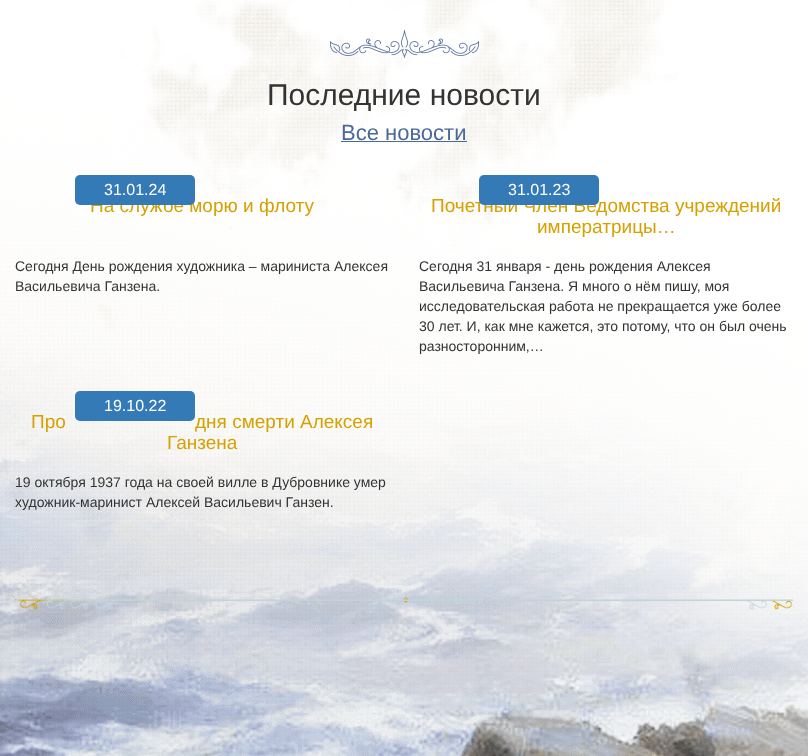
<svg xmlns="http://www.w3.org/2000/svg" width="808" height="756">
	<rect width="100%" height="100%" fill="#FFFFFF" />
	<image x="0" y="0" width="808" height="756" href="assets/img1.png" />
	<image x="0" y="0" width="808" height="756" href="assets/img2.png" />
	<image x="330" y="30" width="149" height="28" href="assets/img3.png" />
	<text x="267" y="105" font-family="Liberation Sans" font-size="30" fill="#333333">Последние новости</text>
	<text x="341" y="140" font-family="Liberation Sans" font-size="22" fill="#4A6899">Все новости</text>
	<rect x="341" y="141" width="126" height="1" fill="#4A6899" />
	<text x="90" y="212" font-family="Liberation Sans" font-size="19" fill="#D6A100">На службе морю и флоту</text>
	<rect x="75" y="175" width="120" height="30" rx="5" fill="#337AB7" />
	<text x="104" y="195" font-family="Liberation Sans" font-size="16" fill="#FFFFFF">31.01.24</text>
	<g font-family="Liberation Sans" font-size="14" fill="#333333">
		<text x="15" y="271">Сегодня День рождения художника – мариниста Алексея</text>
		<text x="15" y="291">Васильевича Ганзена.</text>
	</g>
	<text x="431" y="212" font-family="Liberation Sans" font-size="19" fill="#D6A100">Почетный Член Ведомства учреждений</text>
	<rect x="479" y="175" width="120" height="30" rx="5" fill="#337AB7" />
	<text x="508" y="195" font-family="Liberation Sans" font-size="16" fill="#FFFFFF">31.01.23</text>
	<text x="537" y="233" font-family="Liberation Sans" font-size="19" fill="#D6A100">императрицы…</text>
	<g font-family="Liberation Sans" font-size="14" fill="#333333">
		<text x="419" y="271">Сегодня 31 января - день рождения Алексея</text>
		<text x="419" y="291">Васильевича Ганзена. Я много о нём пишу, моя</text>
		<text x="419" y="311">исследовательская работа не прекращается уже более</text>
		<text x="419" y="331">30 лет. И, как мне кажется, это потому, что он был очень</text>
		<text x="419" y="351">разносторонним,…</text>
	</g>
	<rect x="75" y="391" width="120" height="30" rx="5" fill="#337AB7" />
	<text x="104" y="411" font-family="Liberation Sans" font-size="16" fill="#FFFFFF">19.10.22</text>
	<g font-family="Liberation Sans" font-size="19" fill="#D6A100">
		<text x="31" y="428">Про</text>
		<text x="195" y="428">дня смерти Алексея</text>
		<text x="167" y="449">Ганзена</text>
	</g>
	<g font-family="Liberation Sans" font-size="14" fill="#333333">
		<text x="15" y="487">19 октября 1937 года на своей вилле в Дубровнике умер</text>
		<text x="15" y="507">художник-маринист Алексей Васильевич Ганзен.</text>
	</g>
	<image x="15" y="597" width="778" height="13" href="assets/img4.png" />
</svg>
